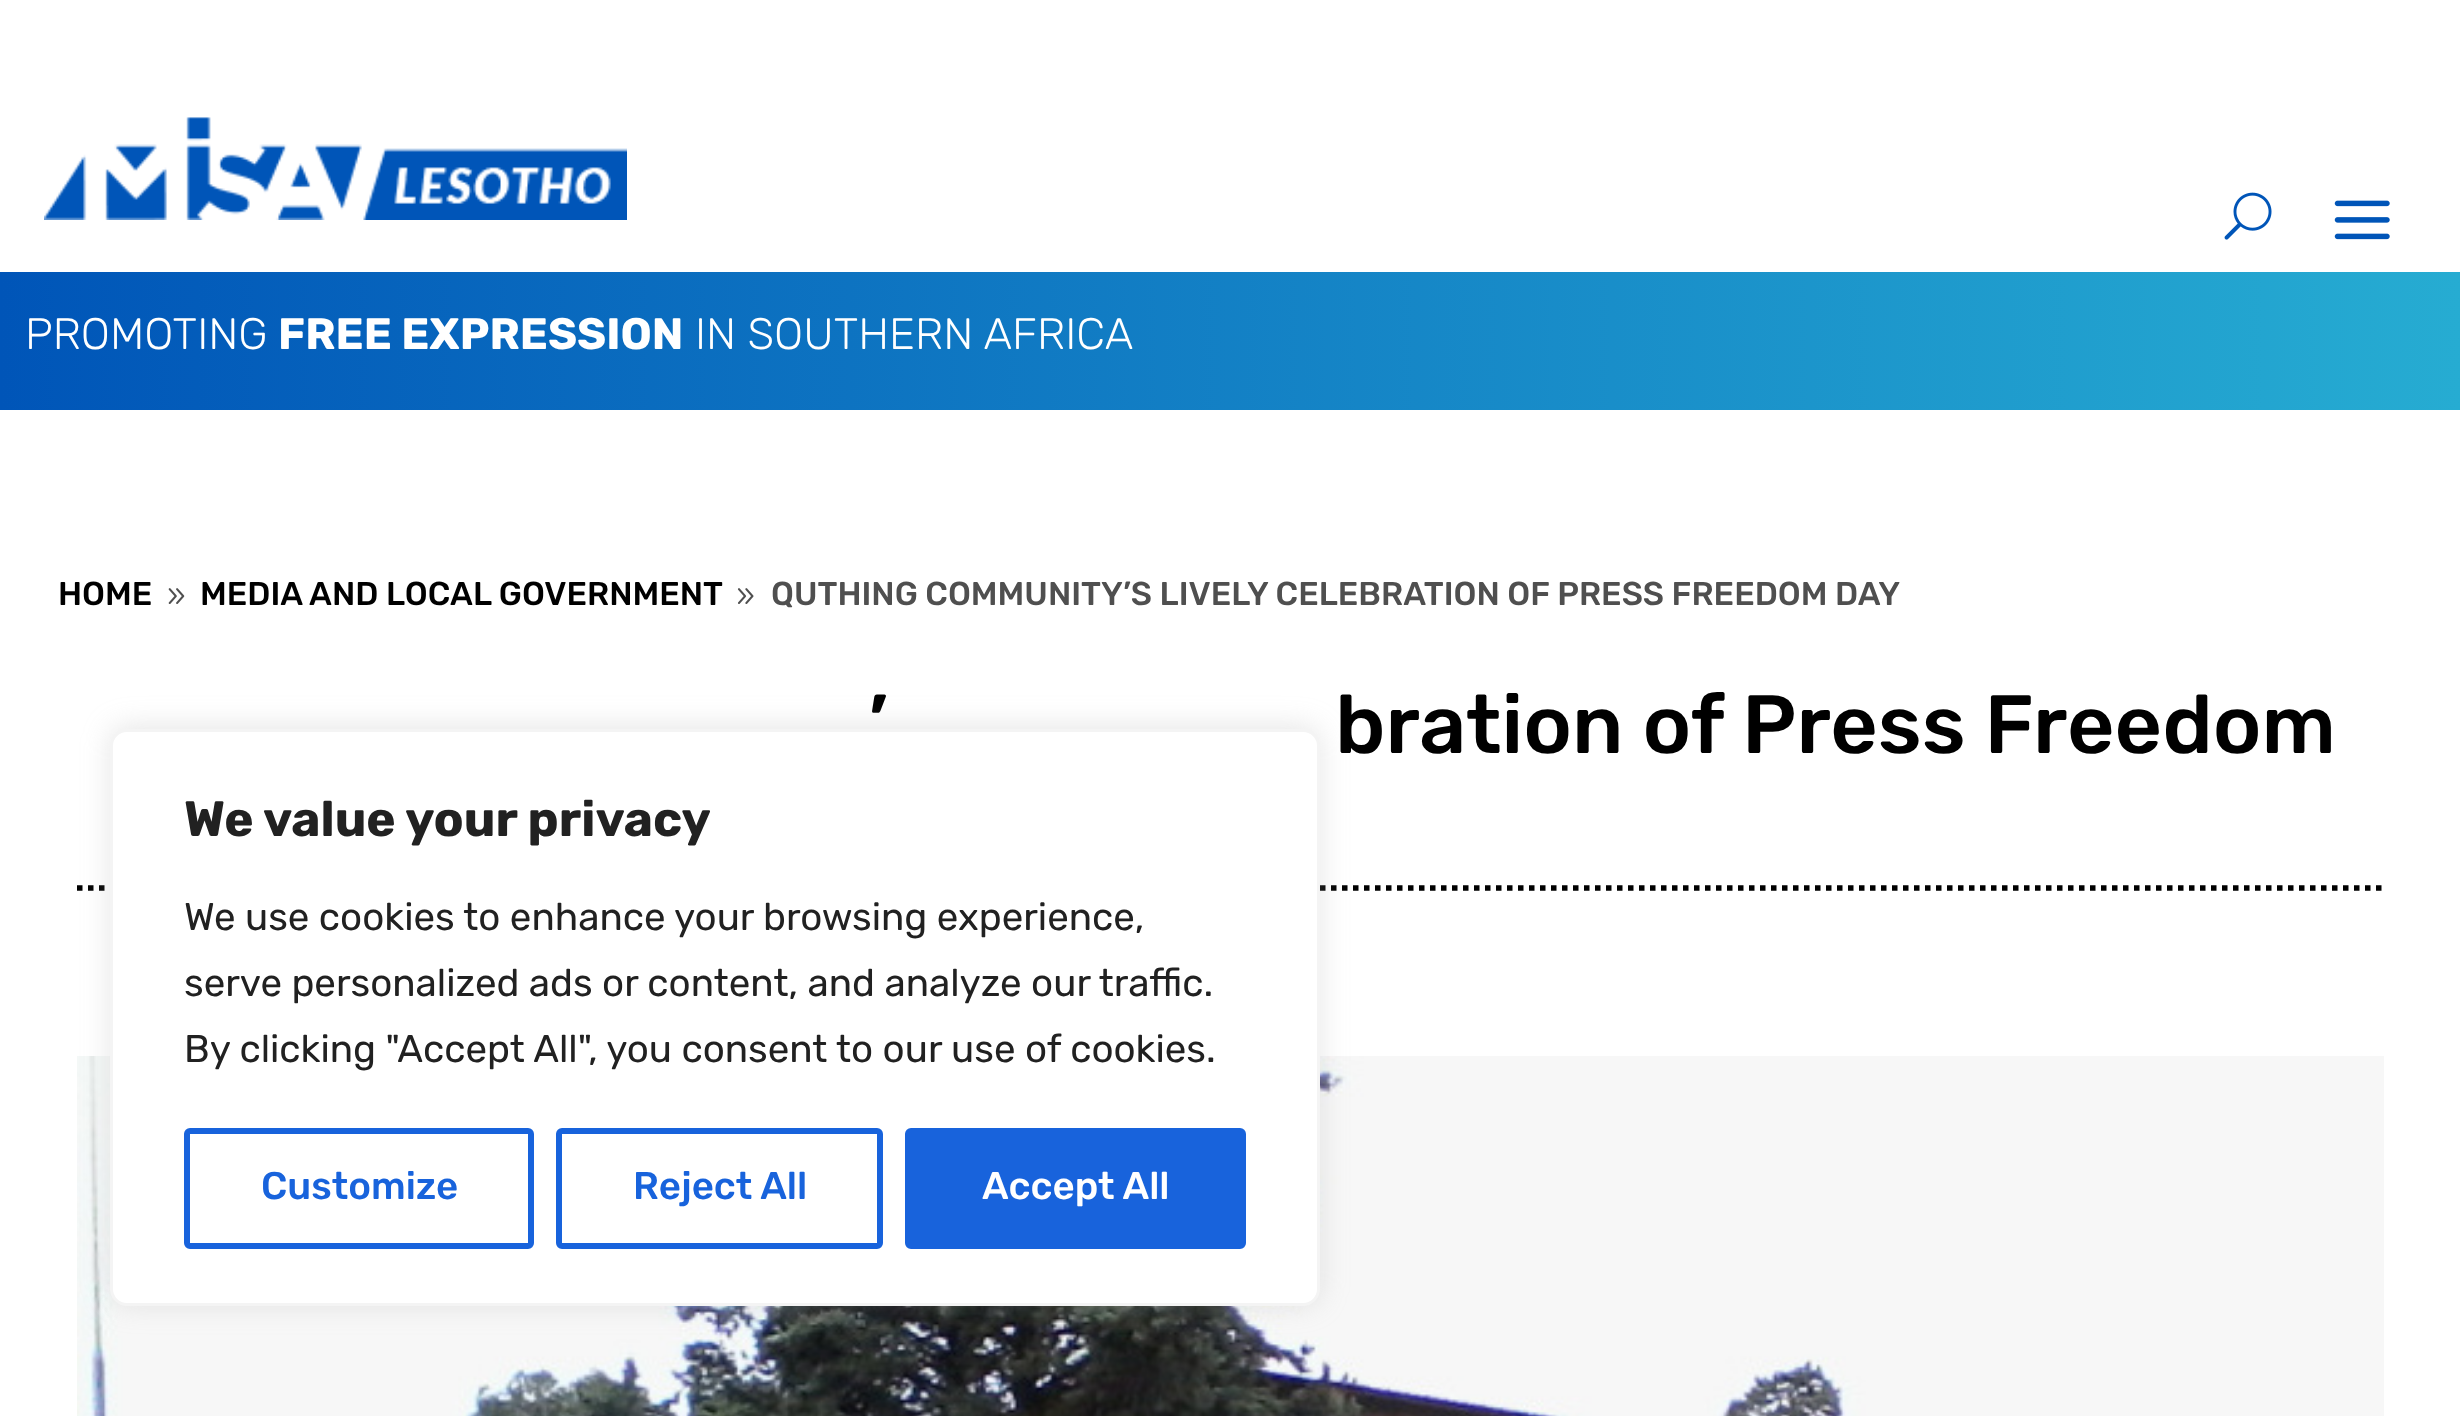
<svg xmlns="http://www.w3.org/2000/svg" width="2460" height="1416">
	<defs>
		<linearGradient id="g1" gradientUnits="userSpaceOnUse" x1="0" y1="341" x2="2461" y2="341"><stop offset="0" stop-color="#0055B8" /><stop offset="1" stop-color="#26ACD2" /></linearGradient>
	</defs>
	<rect width="100%" height="100%" fill="#FFFFFF" />
	<image x="44" y="117" width="583" height="103" href="assets/img1.png" />
	<image x="2224" y="192" width="48" height="48" href="assets/img2.png" />
	<image x="2334" y="200" width="56" height="40" href="assets/img3.png" />
	<rect x="0" y="272" width="2460" height="138" fill="url(#g1)" />
	<text x="25" y="349" font-family="'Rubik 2'" font-size="44" font-weight="300" fill="#FFFFFF">PROMOTING</text>
	<text x="278" y="349" font-family="'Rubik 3'" font-size="44" font-weight="300" fill="#FFFFFF">FREE EXPRESSION</text>
	<text x="695" y="349" font-family="'Rubik 2'" font-size="44" font-weight="300" fill="#FFFFFF">IN SOUTHERN AFRICA</text>
	<text x="58" y="605" font-family="Rubik" font-size="33" font-weight="300" fill="#000000">HOME</text>
	<image x="168" y="588" width="17" height="16" href="assets/img4.png" />
	<text x="200" y="605" font-family="Rubik" font-size="33" font-weight="300" fill="#000000">MEDIA AND LOCAL GOVERNMENT</text>
	<image x="737" y="588" width="17" height="16" href="assets/img5.png" />
	<text x="771" y="605" font-family="Rubik" font-size="33" font-weight="300" fill="#4F4F4F">QUTHING COMMUNITY’S LIVELY CELEBRATION OF PRESS FREEDOM DAY</text>
	<path d="M77 888H2384" fill="none" stroke="#000000" stroke-width="5.5" stroke-dasharray="5.5 5.5" />
	<g font-family="Rubik" font-size="82.5" font-weight="300" fill="#000000">
		<text x="868" y="753">’</text>
		<text x="1335" y="753">bration of Press Freedom</text>
	</g>
	<image x="77" y="1056" width="2307" height="360" href="assets/img6.png" />
	<rect x="110" y="726" width="1210" height="578" rx="17" fill="#ACABAB" fill-opacity="0.3" filter="blur(14px)" />
	<rect x="111.5" y="730.5" width="1207" height="574" rx="15.5" fill="#FFFFFF" stroke="#F4F4F4" stroke-width="3" />
	<text x="184" y="836" font-family="'Rubik 3'" font-size="49.5" font-weight="300" fill="#212121">We value your privacy</text>
	<g font-family="'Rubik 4'" font-size="38.5" font-weight="300" fill="#212121">
		<text x="184" y="930">We use cookies to enhance your browsing experience,</text>
		<text x="184" y="996">serve personalized ads or content, and analyze our traffic.</text>
		<text x="184" y="1062">By clicking "Accept All", you consent to our use of cookies.</text>
	</g>
	<rect x="187" y="1131" width="344" height="115" rx="3" fill="none" stroke="#1863DC" stroke-width="6" />
	<text x="261" y="1199" font-family="Rubik" font-size="38.5" font-weight="300" fill="#1863DC">Customize</text>
	<rect x="559" y="1131" width="321" height="115" rx="3" fill="none" stroke="#1863DC" stroke-width="6" />
	<text x="633" y="1199" font-family="Rubik" font-size="38.5" font-weight="300" fill="#1863DC">Reject All</text>
	<rect x="908" y="1131" width="335" height="115" rx="3" fill="#1863DC" stroke="#1863DC" stroke-width="6" />
	<text x="982" y="1199" font-family="Rubik" font-size="38.5" font-weight="300" fill="#FFFFFF">Accept All</text>
</svg>
